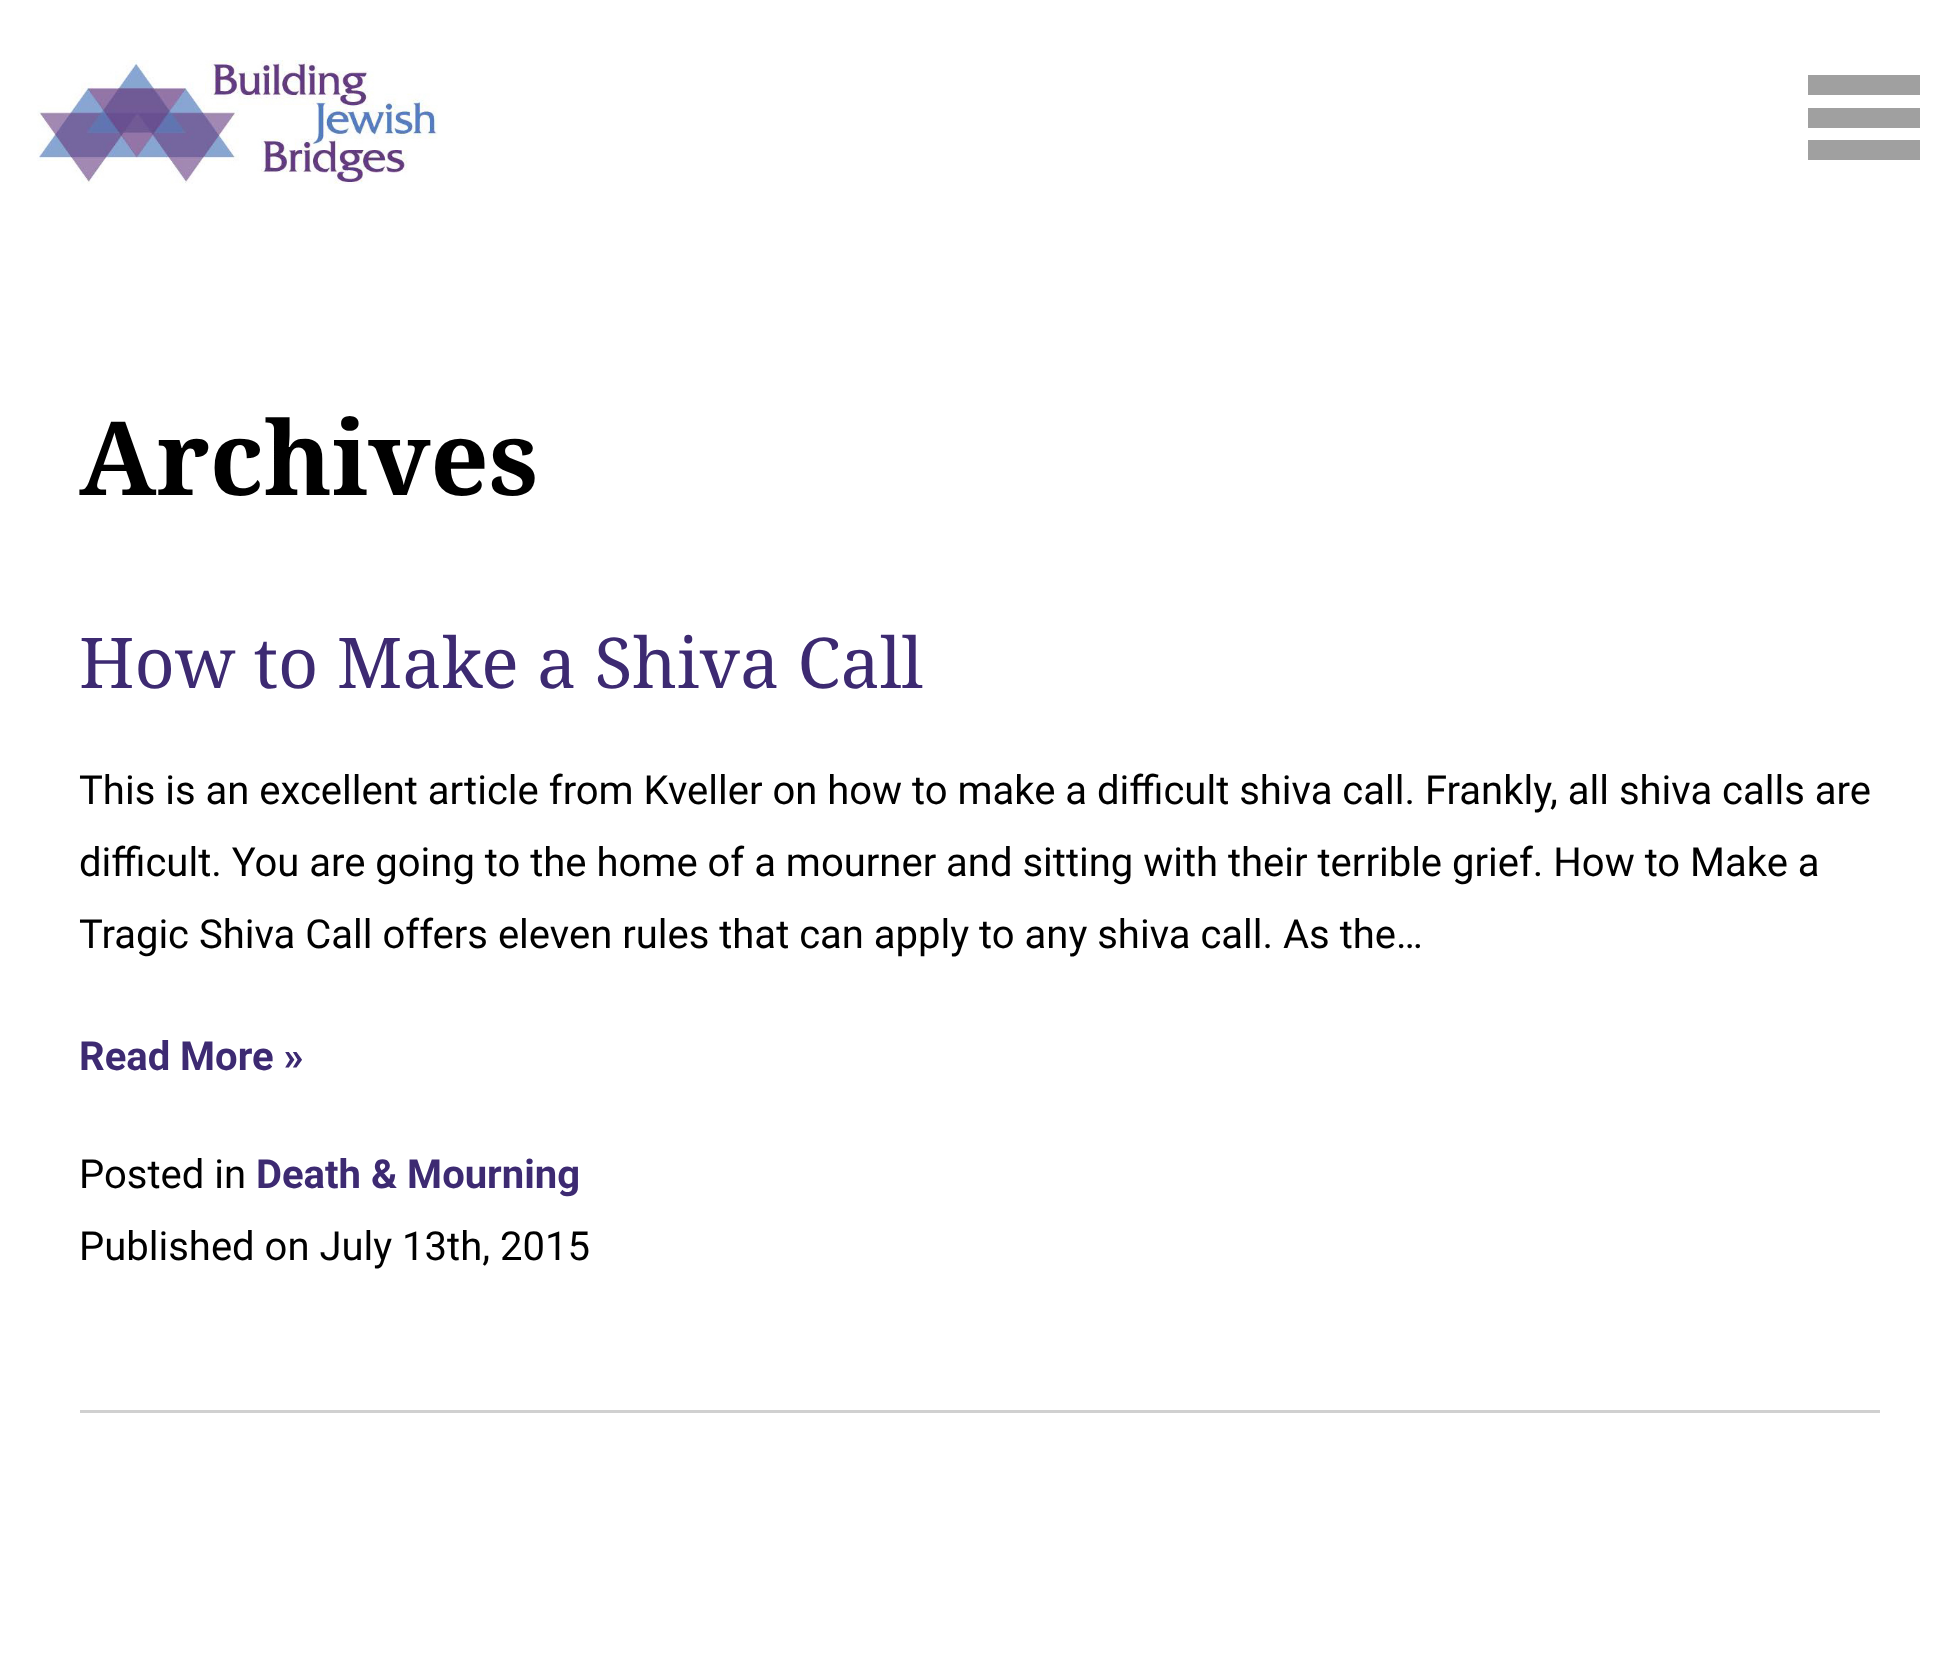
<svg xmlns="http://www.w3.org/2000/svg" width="1956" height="1672">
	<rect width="100%" height="100%" fill="#FFFFFF" />
	<image x="37" y="60" width="401" height="124" href="assets/img1.png" />
	<rect x="1808" y="75" width="112" height="20" fill="#A0A0A0" />
	<rect x="1808" y="108" width="112" height="20" fill="#A0A0A0" />
	<rect x="1808" y="140" width="112" height="20" fill="#A0A0A0" />
	<text x="79" y="495" font-family="Droid Serif" font-size="102.5" font-weight="700" fill="#000000">Archives</text>
	<text x="79" y="688" font-family="Droid Serif" font-size="70" fill="#3D2A72">How to Make a Shiva Call</text>
	<g font-family="Roboto" font-size="40" fill="#000000">
		<text x="79" y="804">This is an excellent article from Kveller on how to make a difficult shiva call. Frankly, all shiva calls are</text>
		<text x="79" y="876">difficult. You are going to the home of a mourner and sitting with their terrible grief. How to Make a</text>
		<text x="79" y="948">Tragic Shiva Call offers eleven rules that can apply to any shiva call. As the…</text>
	</g>
	<text x="79" y="1070" font-family="Roboto" font-size="40" font-weight="700" fill="#3D2A72">Read More »</text>
	<rect x="80" y="1410" width="1800" height="3" fill="#D0D0D0" />
	<text x="79" y="1188" font-family="Roboto" font-size="40" fill="#000000">Posted in</text>
	<text x="256" y="1188" font-family="Roboto" font-size="40" font-weight="700" fill="#3D2A72">Death &amp; Mourning</text>
	<text x="79" y="1260" font-family="Roboto" font-size="40" fill="#000000">Published on July 13th, 2015</text>
</svg>
